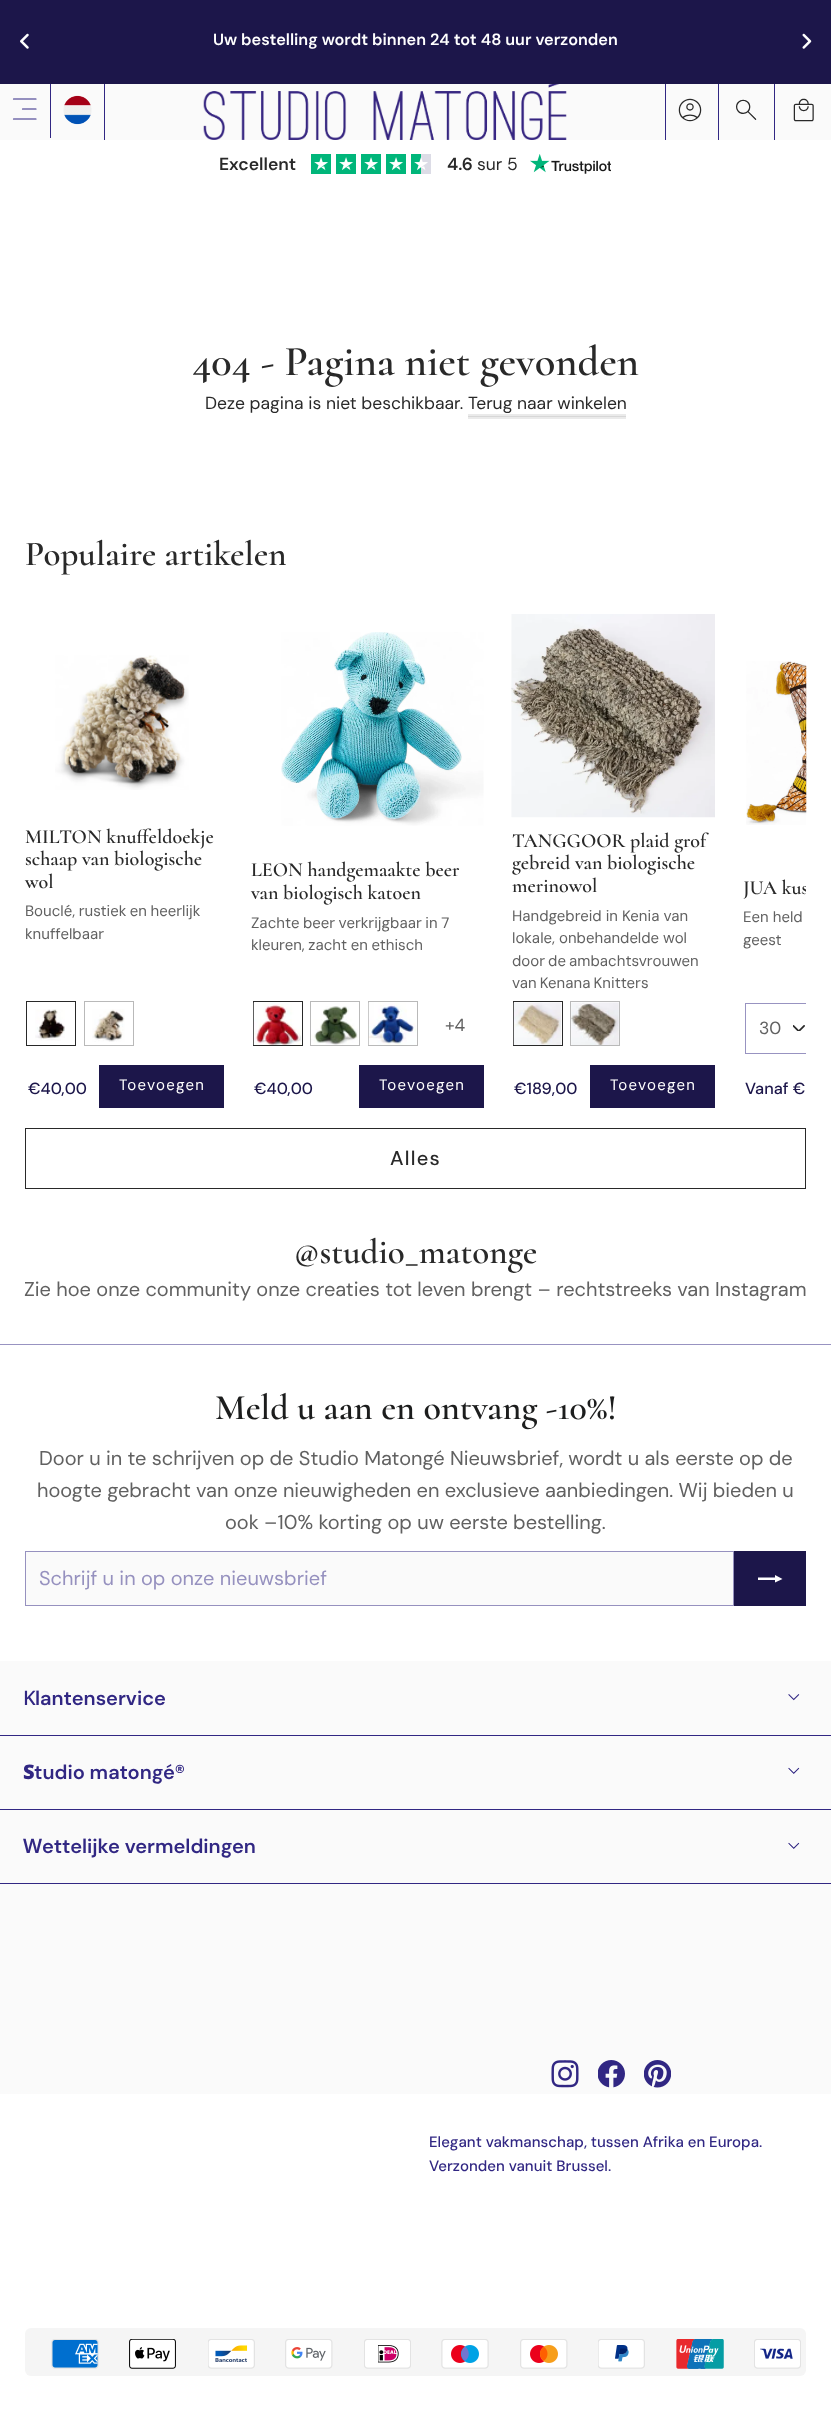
<svg xmlns="http://www.w3.org/2000/svg" width="831" height="2418">
	<defs>
		<clipPath id="clip1"><rect x="25" y="534" width="781" height="574" /></clipPath>
		<clipPath id="clip2"><rect x="758" y="1566" width="25" height="25" /></clipPath>
	</defs>
	<rect width="100%" height="100%" fill="#FFFFFF" />
	<rect x="468" y="417" width="158" height="2" fill="#EAEAEA" />
	<rect x="0" y="84" width="831" height="56" fill="#FAFAFA" />
	<rect x="50" y="80" width="1" height="58" fill="#312783" />
	<rect x="665" y="79" width="1" height="61" fill="#312783" />
	<rect x="104" y="79" width="1" height="61" fill="#312783" />
	<rect x="718" y="79" width="1" height="61" fill="#312783" />
	<rect x="774" y="79" width="1" height="61" fill="#312783" />
	<rect x="0" y="0" width="831" height="84" fill="#1C164A" />
	<image x="20" y="33" width="9" height="16" href="assets/img1.png" />
	<image x="802" y="33" width="10" height="16" href="assets/img2.png" />
	<text x="213" y="45" font-family="'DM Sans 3'" font-size="16.25" font-weight="600" fill="#FFFFFF">Uw bestelling wordt binnen 24 tot 48 uur verzonden</text>
	<path d="M36 99H13.5M36 109H22.5M36 119H13.5" fill="none" stroke="#312783" stroke-width="1.2" stroke-linecap="round" />
	<image x="63" y="95" width="29" height="30" href="assets/img3.png" />
	<image x="203" y="84" width="364" height="56" href="assets/img4.png" />
	<image x="678" y="98" width="24" height="24" href="assets/img5.png" />
	<image x="736" y="99" width="21" height="21" href="assets/img6.png" />
	<image x="793" y="98" width="21" height="24" href="assets/img7.png" />
	<text x="219" y="170" font-family="DM Sans" font-size="17.5" font-weight="600" fill="#292929">Excellent</text>
	<image x="311" y="154" width="120" height="20" href="assets/img8.png" />
	<text x="447" y="170" font-family="DM Sans" font-size="17.5" font-weight="600" fill="#292929">4.6</text>
	<text x="477" y="170" font-family="DM Sans" font-size="17.5" fill="#292929">sur 5</text>
	<image x="530" y="154" width="81" height="20" href="assets/img9.png" />
	<text x="192" y="375" font-family="Cormorant" font-size="42.5" font-weight="600" fill="#292929">404 - Pagina niet gevonden</text>
	<text x="205" y="409" font-family="DM Sans" font-size="17.5" fill="#292929">Deze pagina is niet beschikbaar. Terug naar winkelen</text>
	<rect x="468" y="414" width="158" height="2" fill="#EAEAEA" />
	<rect x="468" y="416" width="158" height="1" fill="#D7D7D7" />
	<text x="25" y="565" font-family="Cormorant" font-size="35" font-weight="600" fill="#292929">Populaire artikelen</text>
	<image x="55" y="655" width="134" height="135" href="assets/img10.png" />
	<g font-family="Cormorant" font-size="20" font-weight="600" fill="#292929">
		<text x="25" y="843">MILTON knuffeldoekje</text>
		<text x="25" y="865">schaap van biologische</text>
		<text x="25" y="888">wol</text>
	</g>
	<g font-family="'DM Sans 3'" font-size="15" fill="#616161">
		<text x="25" y="916" word-spacing="-0.5">Bouclé, rustiek en heerlijk</text>
		<text x="25" y="939">knuffelbaar</text>
	</g>
	<rect x="26.5" y="1001.5" width="49" height="44" fill="none" stroke="#292929" />
	<image x="35" y="1009" width="30" height="32" href="assets/img11.png" />
	<rect x="84.5" y="1001.5" width="49" height="44" fill="none" stroke="#B9B9B9" />
	<image x="92" y="1009" width="33" height="33" href="assets/img12.png" />
	<text x="28" y="1094" font-family="'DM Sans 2'" font-size="16.25" font-weight="500" fill="#1C164A">€40,00</text>
	<rect x="99" y="1065" width="125" height="43" fill="#1C164A" />
	<text x="119" y="1090" font-family="'DM Sans 3'" font-size="15" letter-spacing="1.25" fill="#FFFFFF">Toevoegen</text>
	<image x="281" y="632" width="203" height="194" href="assets/img13.png" />
	<g font-family="Cormorant" font-size="20" font-weight="600" fill="#292929">
		<text x="251" y="876">LEON handgemaakte beer</text>
		<text x="251" y="899">van biologisch katoen</text>
	</g>
	<g font-family="'DM Sans 3'" font-size="15" fill="#616161">
		<text x="251" y="928" word-spacing="-0.5">Zachte beer verkrijgbaar in 7</text>
		<text x="251" y="950" word-spacing="-0.5">kleuren, zacht en ethisch</text>
	</g>
	<rect x="253.5" y="1001.5" width="49" height="44" fill="none" stroke="#292929" />
	<image x="253" y="1002" width="49" height="43" href="assets/img14.png" />
	<rect x="310.5" y="1001.5" width="49" height="44" fill="none" stroke="#B9B9B9" />
	<image x="311" y="1006" width="47" height="39" href="assets/img15.png" />
	<rect x="368.5" y="1001.5" width="49" height="44" fill="none" stroke="#B9B9B9" />
	<image x="368" y="1002" width="49" height="43" href="assets/img16.png" />
	<text x="445" y="1031" font-family="DM Sans" font-size="17.5" fill="#616161">+4</text>
	<text x="254" y="1094" font-family="'DM Sans 2'" font-size="16.25" font-weight="500" fill="#1C164A">€40,00</text>
	<rect x="359" y="1065" width="125" height="43" fill="#1C164A" />
	<text x="379" y="1090" font-family="'DM Sans 3'" font-size="15" letter-spacing="1.25" fill="#FFFFFF">Toevoegen</text>
	<image x="511" y="614" width="204" height="204" href="assets/img17.png" />
	<g font-family="Cormorant" font-size="20" font-weight="600" fill="#292929">
		<text x="512" y="847">TANGGOOR plaid grof</text>
		<text x="512" y="869">gebreid van biologische</text>
		<text x="512" y="892">merinowol</text>
	</g>
	<g font-family="'DM Sans 3'" font-size="15" fill="#616161">
		<text x="512" y="921">Handgebreid in Kenia van</text>
		<text x="512" y="943">lokale, onbehandelde wol</text>
		<text x="512" y="966" word-spacing="-1">door de ambachtsvrouwen</text>
		<text x="512" y="988" word-spacing="-1">van Kenana Knitters</text>
	</g>
	<rect x="513.5" y="1001.5" width="49" height="44" fill="none" stroke="#292929" />
	<image x="513" y="1002" width="49" height="43" href="assets/img18.png" />
	<rect x="570.5" y="1001.5" width="49" height="44" fill="none" stroke="#B9B9B9" />
	<image x="571" y="1002" width="48" height="43" href="assets/img19.png" />
	<text x="514" y="1094" font-family="'DM Sans 2'" font-size="16.25" font-weight="500" fill="#1C164A">€189,00</text>
	<rect x="590" y="1065" width="125" height="43" fill="#1C164A" />
	<text x="610" y="1090" font-family="'DM Sans 3'" font-size="15" letter-spacing="1.25" fill="#FFFFFF">Toevoegen</text>
	<image x="746" y="661" width="61" height="164" href="assets/img20.png" />
	<g clip-path="url(#clip1)">
		<text x="743" y="894" font-family="Cormorant" font-size="20" font-weight="600" fill="#292929">JUA kus</text>
	</g>
	<g font-family="'DM Sans 3'" font-size="15" fill="#616161">
		<text x="743" y="922">Een held</text>
		<text x="743" y="945">geest</text>
	</g>
	<image x="793" y="1025" width="12" height="6" href="assets/img21.png" />
	<g clip-path="url(#clip1)">
		<rect x="745.5" y="1003.5" width="74" height="50" fill="none" stroke="#9893C1" />
	</g>
	<text x="759" y="1034" font-family="DM Sans" font-size="17.5" fill="#616161">30</text>
	<text x="745" y="1094" font-family="'DM Sans 2'" font-size="16.25" font-weight="500" fill="#1C164A">Vanaf €</text>
	<rect x="25.5" y="1128.5" width="780" height="60" fill="none" stroke="#292929" />
	<text x="390" y="1165" font-family="DM Sans" font-size="20" font-weight="500" letter-spacing="1.25" fill="#292929">Alles</text>
	<text x="294" y="1263" font-family="Cormorant" font-size="35" font-weight="600" fill="#292929">@studio_matonge</text>
	<text x="24" y="1296" font-family="'DM Sans 2'" font-size="20" fill="#616161">Zie hoe onze community onze creaties tot leven brengt – rechtstreeks van Instagram</text>
	<rect x="0" y="1344" width="831" height="1" fill="#9893C1" />
	<text x="215" y="1419" font-family="Cormorant" font-size="36.1" font-weight="600" fill="#1C1D1D">Meld u aan en ontvang -10%!</text>
	<g font-family="'DM Sans 2'" font-size="20" fill="#616161">
		<text x="39" y="1465">Door u in te schrijven op de Studio Matongé Nieuwsbrief, wordt u als eerste op de</text>
		<text x="37" y="1497">hoogte gebracht van onze nieuwigheden en exclusieve aanbiedingen. Wij bieden u</text>
		<text x="225" y="1529">ook –10% korting op uw eerste bestelling.</text>
	</g>
	<rect x="25.5" y="1551.5" width="708" height="54" fill="#FAFAFA" stroke="#9691BF" />
	<text x="39" y="1585" font-family="'DM Sans 2'" font-size="20" fill="#9691BF">Schrijf u in op onze nieuwsbrief</text>
	<rect x="734" y="1551" width="72" height="55" fill="#1C164A" />
	<g clip-path="url(#clip2)">
		<path d="M757.5 1580V1577.5H775V1575L782.5 1579L775 1582.5V1580Z" fill="#FFFFFF" />
	</g>
	<rect x="0" y="1661" width="831" height="74" fill="#FAFAFA" />
	<text x="23" y="1705" font-family="Noto Sans" font-size="20" font-weight="500" fill="#312783">K</text>
	<text x="35" y="1705" font-family="'DM Sans 2'" font-size="20" font-weight="600" fill="#312783">lantenservice</text>
	<image x="788" y="1694" width="12" height="7" href="assets/img22.png" />
	<rect x="0" y="1735" width="831" height="1" fill="#312783" />
	<rect x="0" y="1736" width="831" height="73" fill="#FAFAFA" />
	<text x="23" y="1779" font-family="Noto Sans" font-size="20" font-weight="900" fill="#312783">S</text>
	<text x="34" y="1779" font-family="'DM Sans 2'" font-size="20" font-weight="600" fill="#312783">tudio matongé®</text>
	<image x="788" y="1767" width="12" height="7" href="assets/img23.png" />
	<rect x="0" y="1809" width="831" height="1" fill="#312783" />
	<rect x="0" y="1810" width="831" height="73" fill="#FAFAFA" />
	<text x="23" y="1853" font-family="Noto Sans" font-size="20" font-weight="600" fill="#312783">W</text>
	<text x="42" y="1853" font-family="'DM Sans 2'" font-size="20" font-weight="600" fill="#312783">ettelijke vermeldingen</text>
	<image x="788" y="1842" width="12" height="7" href="assets/img23.png" />
	<rect x="0" y="1883" width="831" height="1" fill="#312783" />
	<rect x="0" y="1884" width="831" height="210" fill="#FAFAFA" />
	<image x="551" y="2060" width="28" height="28" href="assets/img24.png" />
	<image x="598" y="2060" width="27" height="28" href="assets/img25.png" />
	<image x="644" y="2060" width="27" height="28" href="assets/img26.png" />
	<g font-family="'DM Sans 3'" font-size="15" font-weight="500" fill="#312783">
		<text x="429" y="2147">Elegant vakmanschap, tussen Afrika en Europa.</text>
		<text x="429" y="2171">Verzonden vanuit Brussel.</text>
	</g>
	<rect x="25" y="2328" width="781" height="48" rx="6" fill="#F5F5F5" />
	<image x="51" y="2339" width="48" height="30" href="assets/img27.png" />
	<image x="129" y="2339" width="47" height="30" href="assets/img28.png" />
	<image x="208" y="2339" width="47" height="30" href="assets/img29.png" />
	<image x="285" y="2339" width="48" height="30" href="assets/img30.png" />
	<image x="364" y="2339" width="47" height="30" href="assets/img31.png" />
	<image x="441" y="2339" width="48" height="30" href="assets/img32.png" />
	<image x="520" y="2339" width="48" height="30" href="assets/img33.png" />
	<image x="598" y="2339" width="47" height="30" href="assets/img34.png" />
	<image x="676" y="2339" width="48" height="30" href="assets/img35.png" />
	<image x="754" y="2339" width="47" height="30" href="assets/img36.png" />
</svg>
